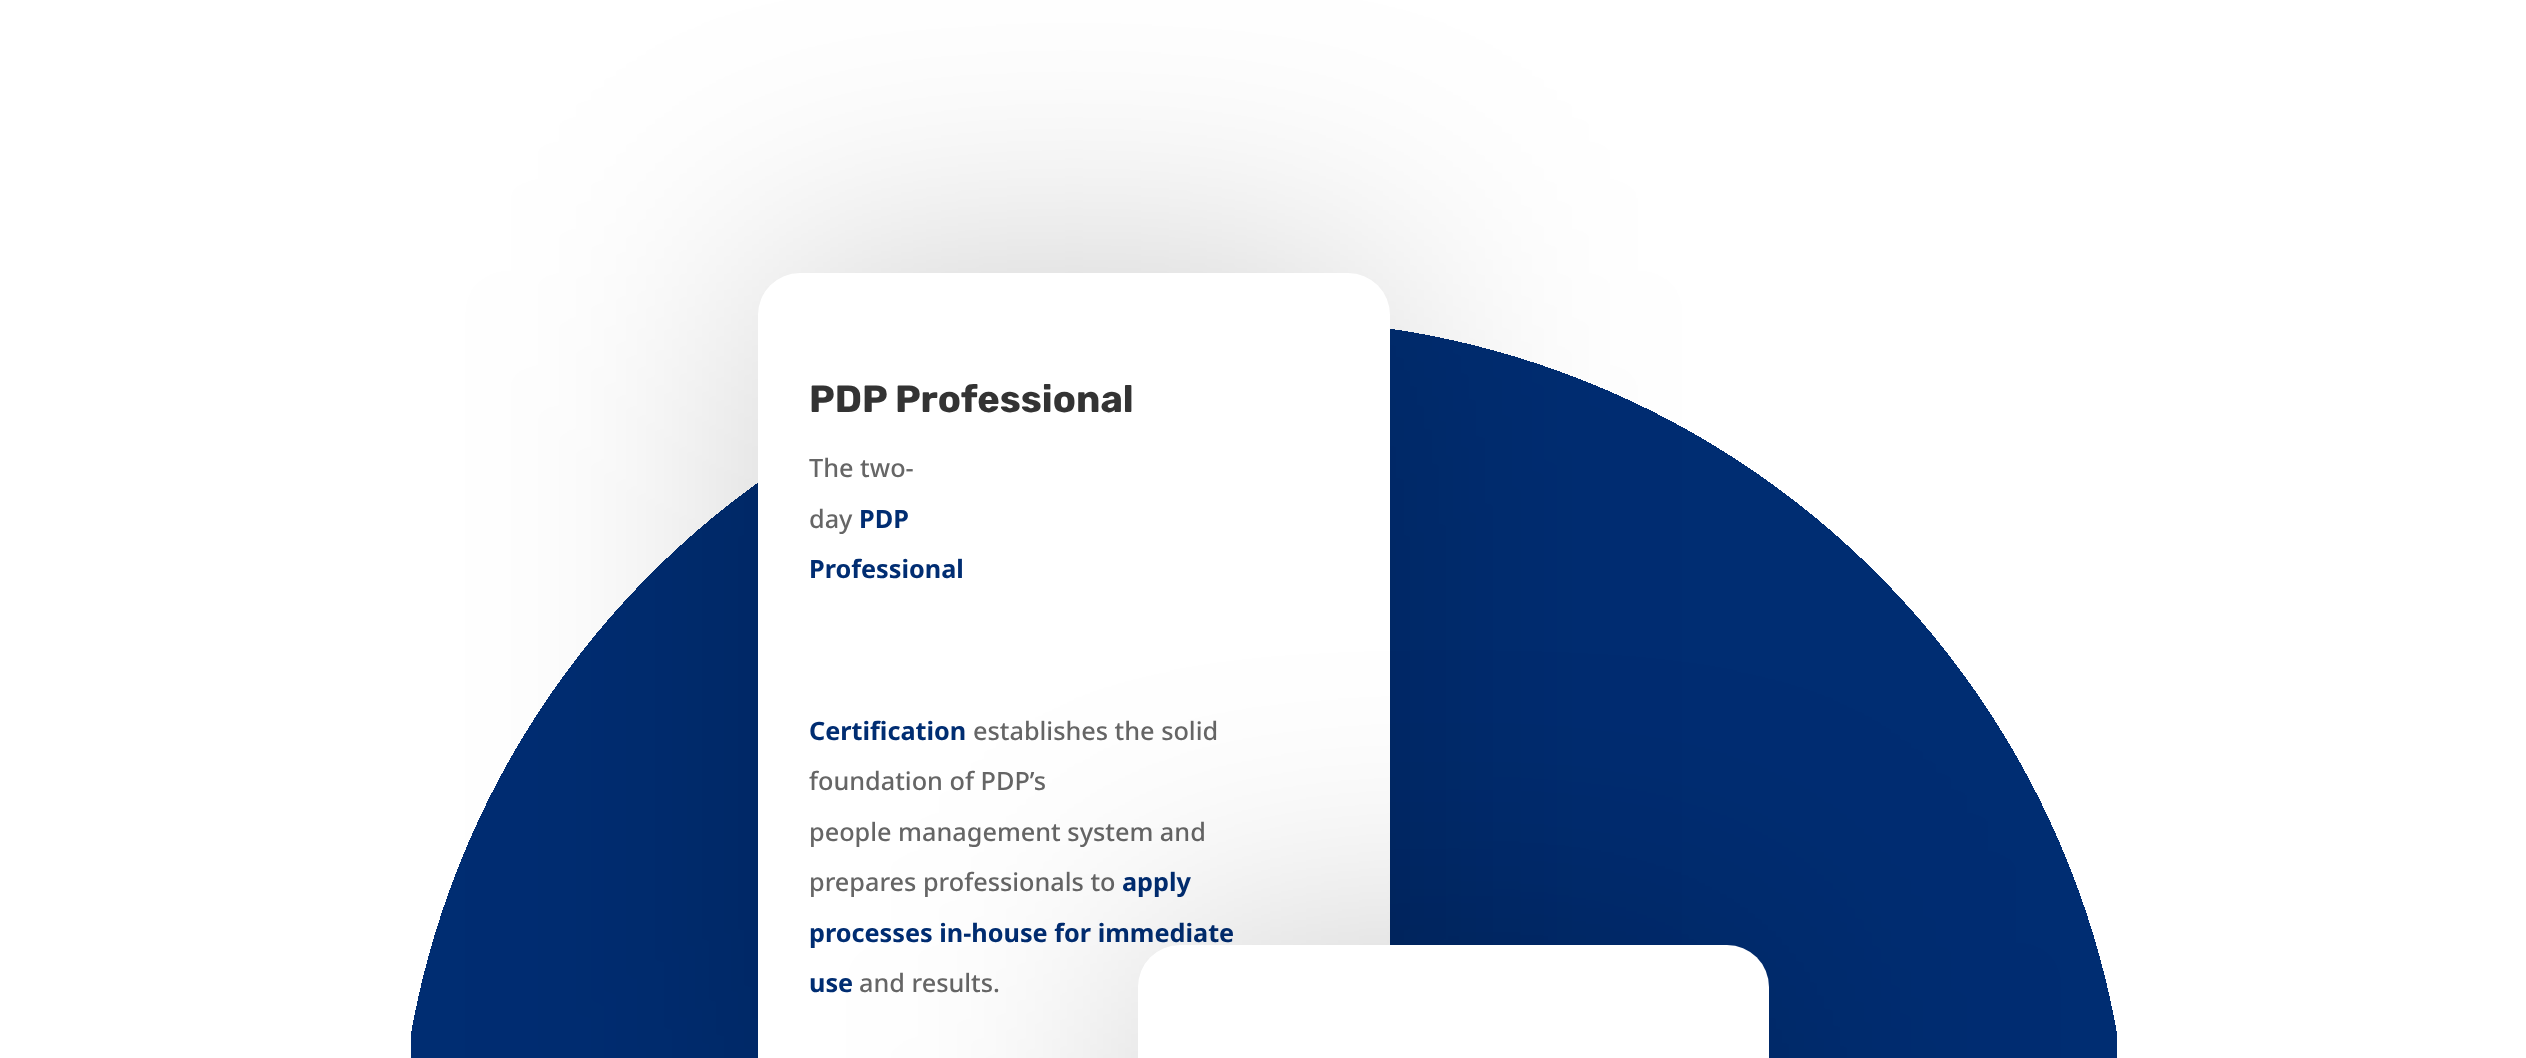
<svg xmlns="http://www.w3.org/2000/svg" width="2526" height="1058">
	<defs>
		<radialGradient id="g1" gradientUnits="userSpaceOnUse" cx="1264" cy="1186" r="1733"><stop offset="0.5" stop-color="#002D72" /><stop offset="0.5" stop-color="#FFFFFF" /></radialGradient>
	</defs>
	<rect width="100%" height="100%" fill="#FFFFFF" />
	<rect x="411" y="321" width="1706" height="737" fill="url(#g1)" />
	<rect x="758" y="270" width="632" height="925" rx="42" fill="#000000" fill-opacity="0.2" filter="blur(140px)" />
	<rect x="758" y="273" width="632" height="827" rx="42" fill="#FFFFFF" />
	<text x="809" y="412" font-family="Rubik" font-size="38" font-weight="700" fill="#333333">PDP Professional</text>
	<g font-family="Noto Sans" font-size="25.25" font-weight="500" fill="#666666">
		<text x="809" y="477">The two-</text>
		<text x="809" y="528">day</text>
	</g>
	<g font-family="Noto Sans" font-size="25.25" font-weight="700" fill="#002D72">
		<text x="859" y="528">PDP</text>
		<text x="809" y="578">Professional</text>
		<text x="809" y="740">Certification</text>
	</g>
	<g font-family="Noto Sans" font-size="25.25" font-weight="500" fill="#666666">
		<text x="973" y="740">establishes the solid</text>
		<text x="809" y="790">foundation of PDP’s</text>
		<text x="809" y="841">people management system and</text>
		<text x="809" y="891">prepares professionals to</text>
	</g>
	<g font-family="Noto Sans" font-size="25.25" font-weight="700" fill="#002D72">
		<text x="1122" y="891">apply</text>
		<text x="809" y="942">processes in-house for immediate</text>
		<text x="809" y="992">use</text>
	</g>
	<text x="859" y="992" font-family="Noto Sans" font-size="25.25" font-weight="500" fill="#666666">and results.</text>
	<rect x="1138" y="942" width="631" height="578" rx="42" fill="#000000" fill-opacity="0.2" filter="blur(140px)" />
	<rect x="1138" y="945" width="631" height="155" rx="42" fill="#FFFFFF" />
</svg>
